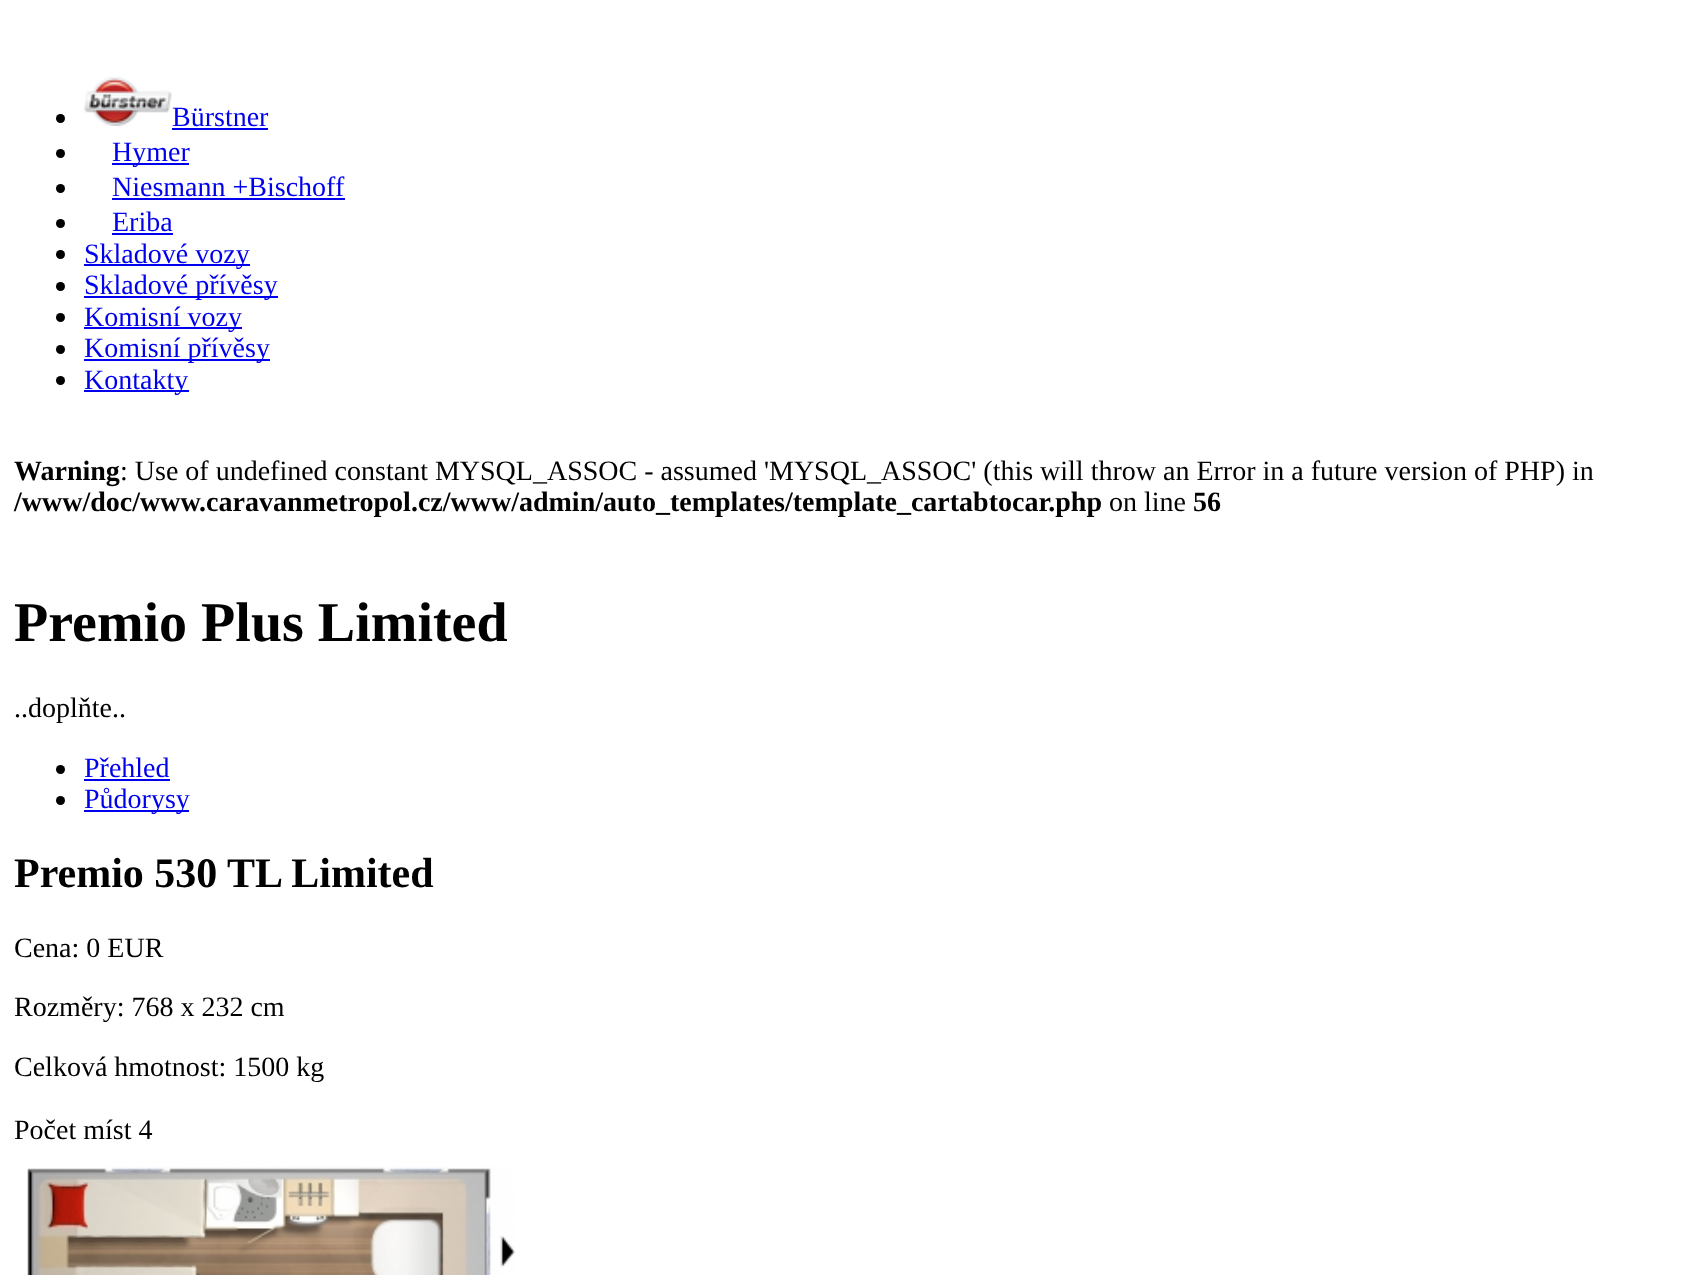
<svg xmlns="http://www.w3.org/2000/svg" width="1701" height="1275">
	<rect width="100%" height="100%" fill="#FFFFFF" />
	<circle cx="60.5" cy="118.5" r="4.5" fill="#000000" />
	<image x="84" y="77" width="88" height="49" href="assets/img1.png" />
	<text x="172" y="126" font-family="Liberation Serif" font-size="28" fill="#0000EE">Bürstner</text>
	<rect x="172" y="128" width="96" height="2" fill="#0000EE" />
	<circle cx="60.5" cy="153.5" r="4.5" fill="#000000" />
	<rect x="112" y="163" width="77" height="2" fill="#0000EE" />
	<text x="112" y="161" font-family="Liberation Serif" font-size="28" fill="#0000EE">Hymer</text>
	<circle cx="60.5" cy="188.5" r="4.5" fill="#000000" />
	<text x="112" y="196" font-family="Liberation Serif" font-size="28" fill="#0000EE">Niesmann +Bischoff</text>
	<rect x="112" y="198" width="233" height="2" fill="#0000EE" />
	<circle cx="60.5" cy="223.5" r="4.5" fill="#000000" />
	<text x="112" y="231" font-family="Liberation Serif" font-size="28" fill="#0000EE">Eriba</text>
	<rect x="112" y="233" width="61" height="2" fill="#0000EE" />
	<circle cx="60.5" cy="254.5" r="4.5" fill="#000000" />
	<rect x="84" y="264" width="166" height="2" fill="#0000EE" />
	<text x="84" y="263" font-family="Liberation Serif" font-size="28" fill="#0000EE">Skladové vozy</text>
	<circle cx="60.5" cy="286.5" r="4.5" fill="#000000" />
	<rect x="84" y="296" width="194" height="2" fill="#0000EE" />
	<text x="84" y="294" font-family="Liberation Serif" font-size="28" fill="#0000EE">Skladové přívěsy</text>
	<circle cx="60.5" cy="317.5" r="4.5" fill="#000000" />
	<rect x="84" y="327" width="158" height="2" fill="#0000EE" />
	<text x="84" y="326" font-family="Liberation Serif" font-size="28" fill="#0000EE">Komisní vozy</text>
	<circle cx="60.5" cy="349.5" r="4.5" fill="#000000" />
	<rect x="84" y="359" width="186" height="2" fill="#0000EE" />
	<text x="84" y="357" font-family="Liberation Serif" font-size="28" fill="#0000EE">Komisní přívěsy</text>
	<circle cx="60.5" cy="380.5" r="4.5" fill="#000000" />
	<rect x="84" y="390" width="105" height="2" fill="#0000EE" />
	<text x="84" y="389" font-family="Liberation Serif" font-size="28" fill="#0000EE">Kontakty</text>
	<text x="14" y="480" font-family="Liberation Serif" font-size="28" font-weight="700" fill="#000000">Warning</text>
	<text x="120" y="480" font-family="Liberation Serif" font-size="28" fill="#000000">: Use of undefined constant MYSQL_ASSOC - assumed 'MYSQL_ASSOC' (this will throw an Error in a future version of PHP) in</text>
	<text x="14" y="511" font-family="Liberation Serif" font-size="28" font-weight="700" fill="#000000">/www/doc/www.caravanmetropol.cz/www/admin/auto_templates/template_cartabtocar.php</text>
	<text x="1109" y="511" font-family="Liberation Serif" font-size="28" fill="#000000">on line</text>
	<text x="1193" y="511" font-family="Liberation Serif" font-size="28" font-weight="700" fill="#000000">56</text>
	<text x="14" y="641" font-family="Liberation Serif" font-size="56" font-weight="700" fill="#000000">Premio Plus Limited</text>
	<text x="14" y="717" font-family="Liberation Serif" font-size="28" fill="#000000">..doplňte..</text>
	<circle cx="60.5" cy="769.5" r="4.5" fill="#000000" />
	<text x="84" y="777" font-family="Liberation Serif" font-size="28" fill="#0000EE">Přehled</text>
	<rect x="84" y="779" width="86" height="2" fill="#0000EE" />
	<circle cx="60.5" cy="800.5" r="4.5" fill="#000000" />
	<rect x="84" y="810" width="105" height="2" fill="#0000EE" />
	<text x="84" y="808" font-family="Liberation Serif" font-size="28" fill="#0000EE">Půdorysy</text>
	<text x="14" y="887" font-family="Liberation Serif" font-size="42" font-weight="700" fill="#000000">Premio 530 TL Limited</text>
	<g font-family="Liberation Serif" font-size="28" fill="#000000">
		<text x="14" y="957">Cena: 0 EUR</text>
		<text x="14" y="1016">Rozměry: 768 x 232 cm</text>
		<text x="14" y="1076">Celková hmotnost: 1500 kg</text>
		<text x="14" y="1139">Počet míst 4</text>
	</g>
	<image x="27" y="1166" width="488" height="109" href="assets/img2.png" />
</svg>
